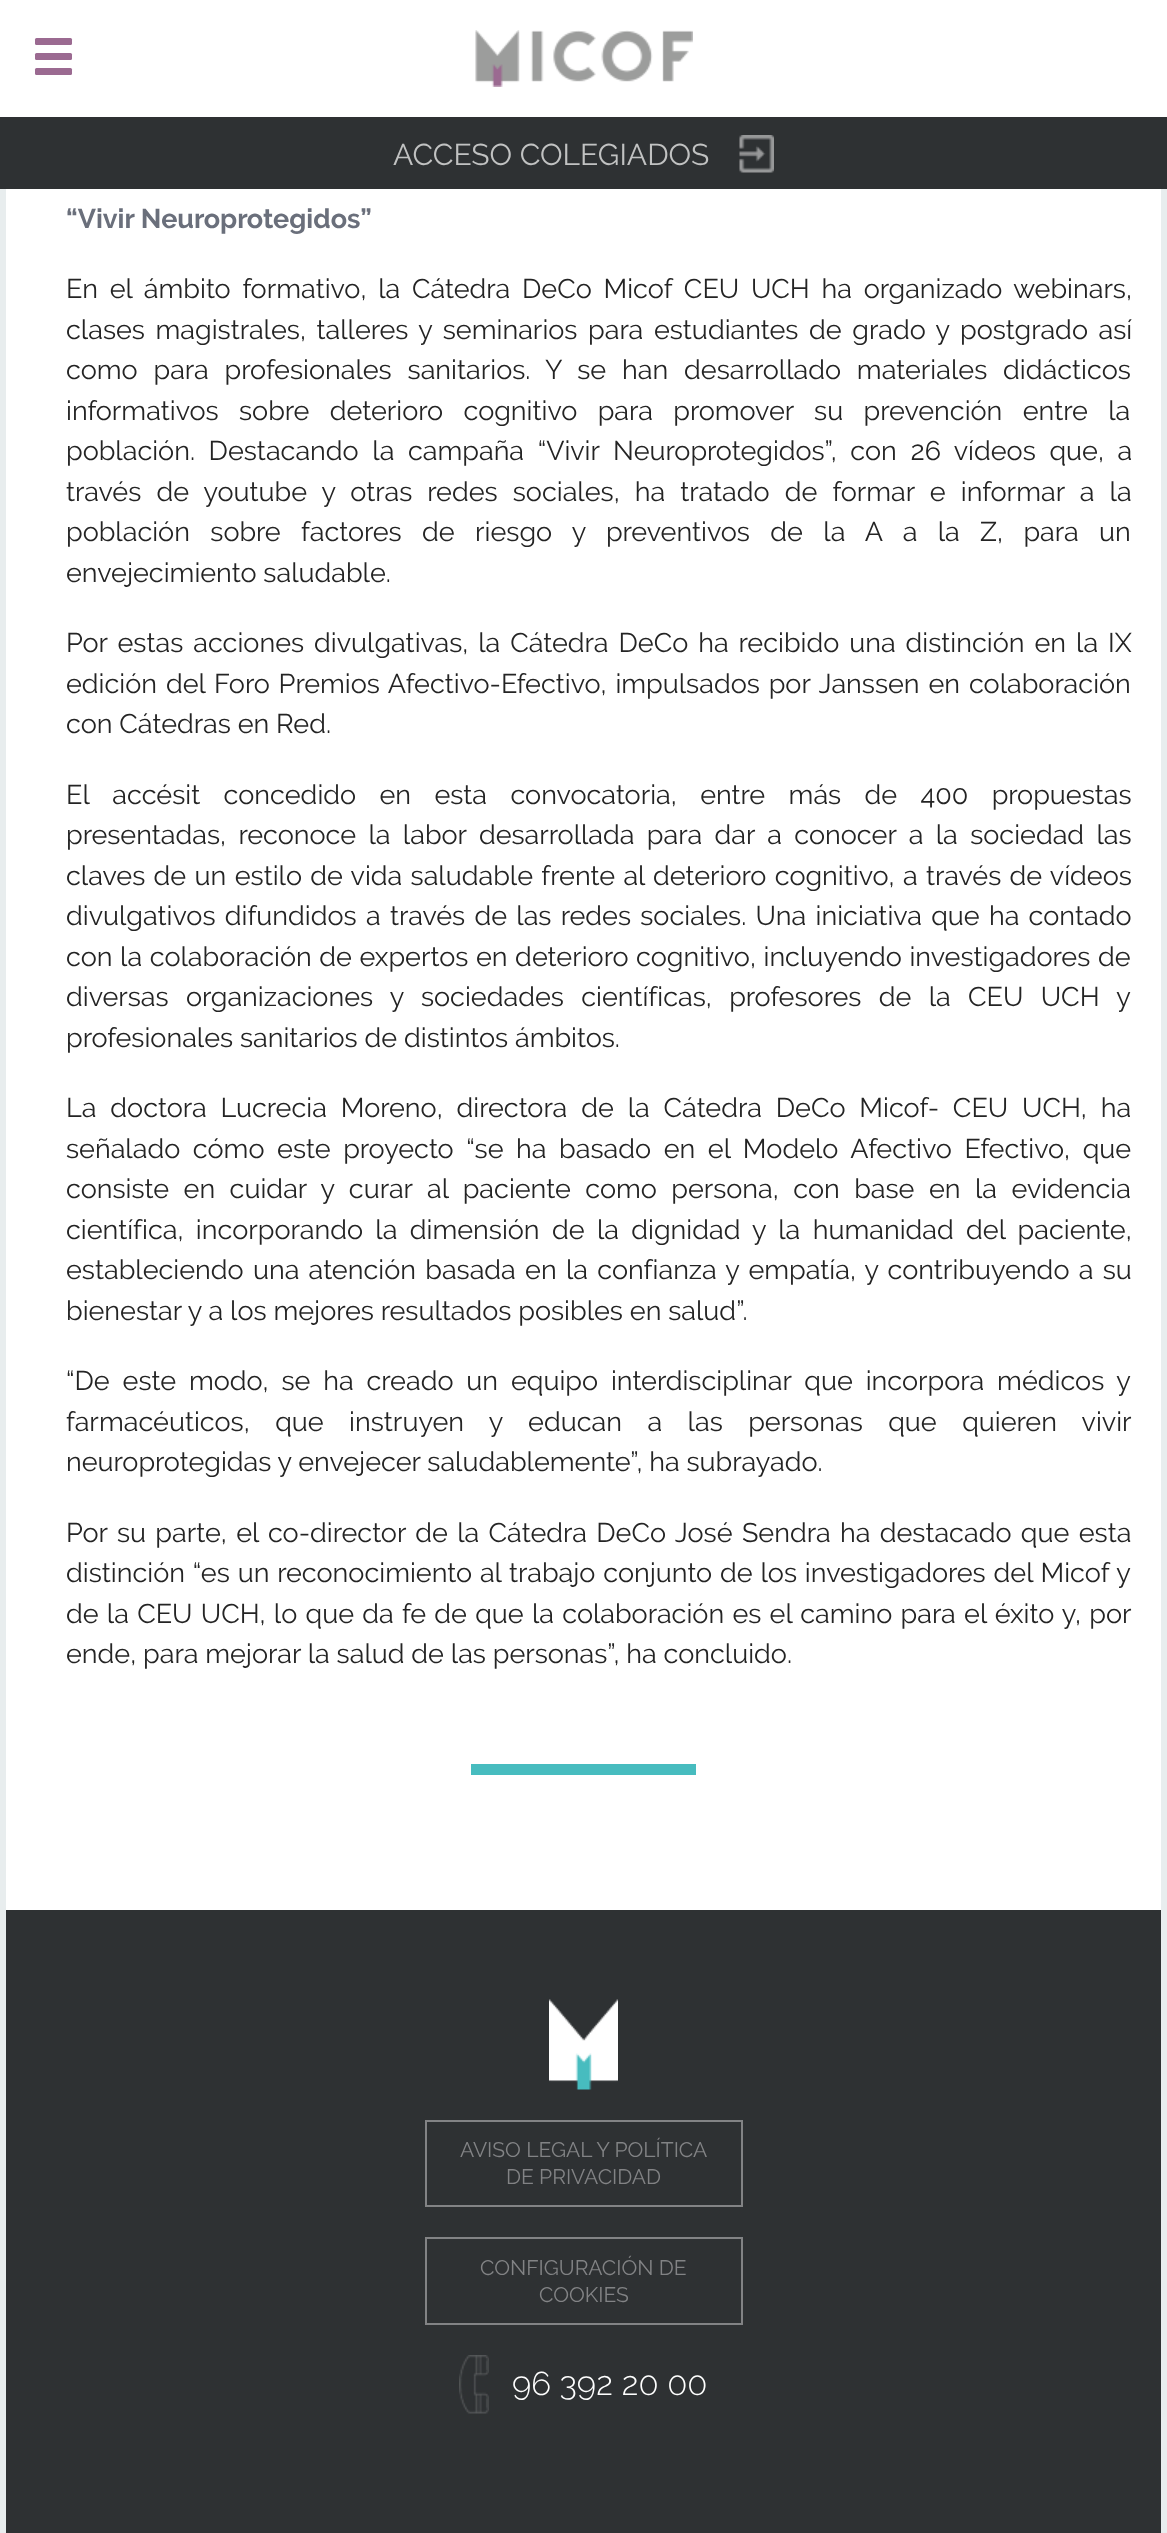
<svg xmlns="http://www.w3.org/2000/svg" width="1167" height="2533">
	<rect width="100%" height="100%" fill="#E8EDEE" />
	<rect x="0" y="0" width="1167" height="117" fill="#FFFFFF" />
	<rect x="35" y="53" width="37" height="7" rx="1.5" fill="#9B6A91" />
	<rect x="35" y="38" width="37" height="7" rx="1.5" fill="#9B6A91" />
	<rect x="35" y="68" width="37" height="7" rx="1.5" fill="#9B6A91" />
	<image x="475" y="30" width="218" height="57" href="assets/img1.png" />
	<rect x="0" y="117" width="1167" height="72" fill="#2E3133" />
	<text x="393" y="165" font-family="Raleway" font-size="30" fill="#C1C2C2">ACCESO COLEGIADOS</text>
	<image x="739" y="135" width="35" height="38" href="assets/img2.png" />
	<rect x="6" y="189" width="1155" height="1721" fill="#FFFFFF" />
	<text x="66" y="228" font-family="Raleway" font-size="27" font-weight="700" fill="#6A6F7B">“Vivir Neuroprotegidos”</text>
	<g font-family="Raleway" font-size="27" fill="#242424">
		<text x="66" y="298" word-spacing="4.9">En el ámbito formativo, la Cátedra DeCo Micof CEU UCH ha organizado webinars,</text>
		<text x="66" y="339" word-spacing="3.75">clases magistrales, talleres y seminarios para estudiantes de grado y postgrado así</text>
		<text x="66" y="379" word-spacing="9">como para profesionales sanitarios. Y se han desarrollado materiales didácticos</text>
		<text x="66" y="420" word-spacing="13.5">informativos sobre deterioro cognitivo para promover su prevención entre la</text>
		<text x="66" y="460" word-spacing="6.75">población. Destacando la campaña “Vivir Neuroprotegidos”, con 26 vídeos que, a</text>
		<text x="66" y="501" word-spacing="8.25">través de youtube y otras redes sociales, ha tratado de formar e informar a la</text>
		<text x="66" y="541" word-spacing="13.5">población sobre factores de riesgo y preventivos de la A a la Z, para un</text>
		<text x="66" y="582">envejecimiento saludable.</text>
		<text x="66" y="652" word-spacing="3.1">Por estas acciones divulgativas, la Cátedra DeCo ha recibido una distinción en la IX</text>
		<text x="66" y="693" word-spacing="2">edición del Foro Premios Afectivo-Efectivo, impulsados por Janssen en colaboración</text>
		<text x="66" y="733">con Cátedras en Red.</text>
		<text x="66" y="804" word-spacing="16.5">El accésit concedido en esta convocatoria, entre más de 400 propuestas</text>
		<text x="66" y="844" word-spacing="5.5">presentadas, reconoce la labor desarrollada para dar a conocer a la sociedad las</text>
		<text x="66" y="885" word-spacing="1.5">claves de un estilo de vida saludable frente al deterioro cognitivo, a través de vídeos</text>
		<text x="66" y="925" word-spacing="2.4">divulgativos difundidos a través de las redes sociales. Una iniciativa que ha contado</text>
		<text x="66" y="966" word-spacing="0.75">con la colaboración de expertos en deterioro cognitivo, incluyendo investigadores de</text>
		<text x="66" y="1006" word-spacing="10.5">diversas organizaciones y sociedades científicas, profesores de la CEU UCH y</text>
		<text x="66" y="1047">profesionales sanitarios de distintos ámbitos.</text>
		<text x="66" y="1117" word-spacing="7">La doctora Lucrecia Moreno, directora de la Cátedra DeCo Micof- CEU UCH, ha</text>
		<text x="66" y="1158" word-spacing="5.75">señalado cómo este proyecto “se ha basado en el Modelo Afectivo Efectivo, que</text>
		<text x="66" y="1198" word-spacing="7.6">consiste en cuidar y curar al paciente como persona, con base en la evidencia</text>
		<text x="66" y="1239" word-spacing="5.5">científica, incorporando la dimensión de la dignidad y la humanidad del paciente,</text>
		<text x="66" y="1279" word-spacing="2.4">estableciendo una atención basada en la confianza y empatía, y contribuyendo a su</text>
		<text x="66" y="1320">bienestar y a los mejores resultados posibles en salud”.</text>
		<text x="66" y="1390" word-spacing="6">“De este modo, se ha creado un equipo interdisciplinar que incorpora médicos y</text>
		<text x="66" y="1431" word-spacing="18.6">farmacéuticos, que instruyen y educan a las personas que quieren vivir</text>
		<text x="66" y="1471">neuroprotegidas y envejecer saludablemente”, ha subrayado.</text>
		<text x="66" y="1542" word-spacing="2.5">Por su parte, el co-director de la Cátedra DeCo José Sendra ha destacado que esta</text>
		<text x="66" y="1582" word-spacing="1">distinción “es un reconocimiento al trabajo conjunto de los investigadores del Micof y</text>
		<text x="66" y="1623" word-spacing="1.4">de la CEU UCH, lo que da fe de que la colaboración es el camino para el éxito y, por</text>
		<text x="66" y="1663">ende, para mejorar la salud de las personas”, ha concluido.</text>
	</g>
	<rect x="471" y="1764" width="225" height="11" fill="#47BCBF" />
	<rect x="6" y="1910" width="1155" height="623" fill="#2E3133" />
	<image x="549" y="1999" width="69" height="91" href="assets/img3.png" />
	<rect x="426" y="2121" width="316" height="85" fill="none" stroke="#828385" stroke-width="2" />
	<g font-family="Raleway" font-size="21" fill="#828385">
		<text x="460" y="2157">AVISO LEGAL Y POLÍTICA</text>
		<text x="506" y="2184">DE PRIVACIDAD</text>
	</g>
	<rect x="426" y="2238" width="316" height="86" fill="none" stroke="#828385" stroke-width="2" />
	<g font-family="Raleway" font-size="21" fill="#828385">
		<text x="480" y="2275">CONFIGURACIÓN DE</text>
		<text x="539" y="2302">COOKIES</text>
	</g>
	<image x="459" y="2355" width="30" height="59" href="assets/img4.png" />
	<text x="512" y="2395" font-family="Raleway" font-size="33" font-weight="300" fill="#FFFFFF">96 392 20 00</text>
</svg>
